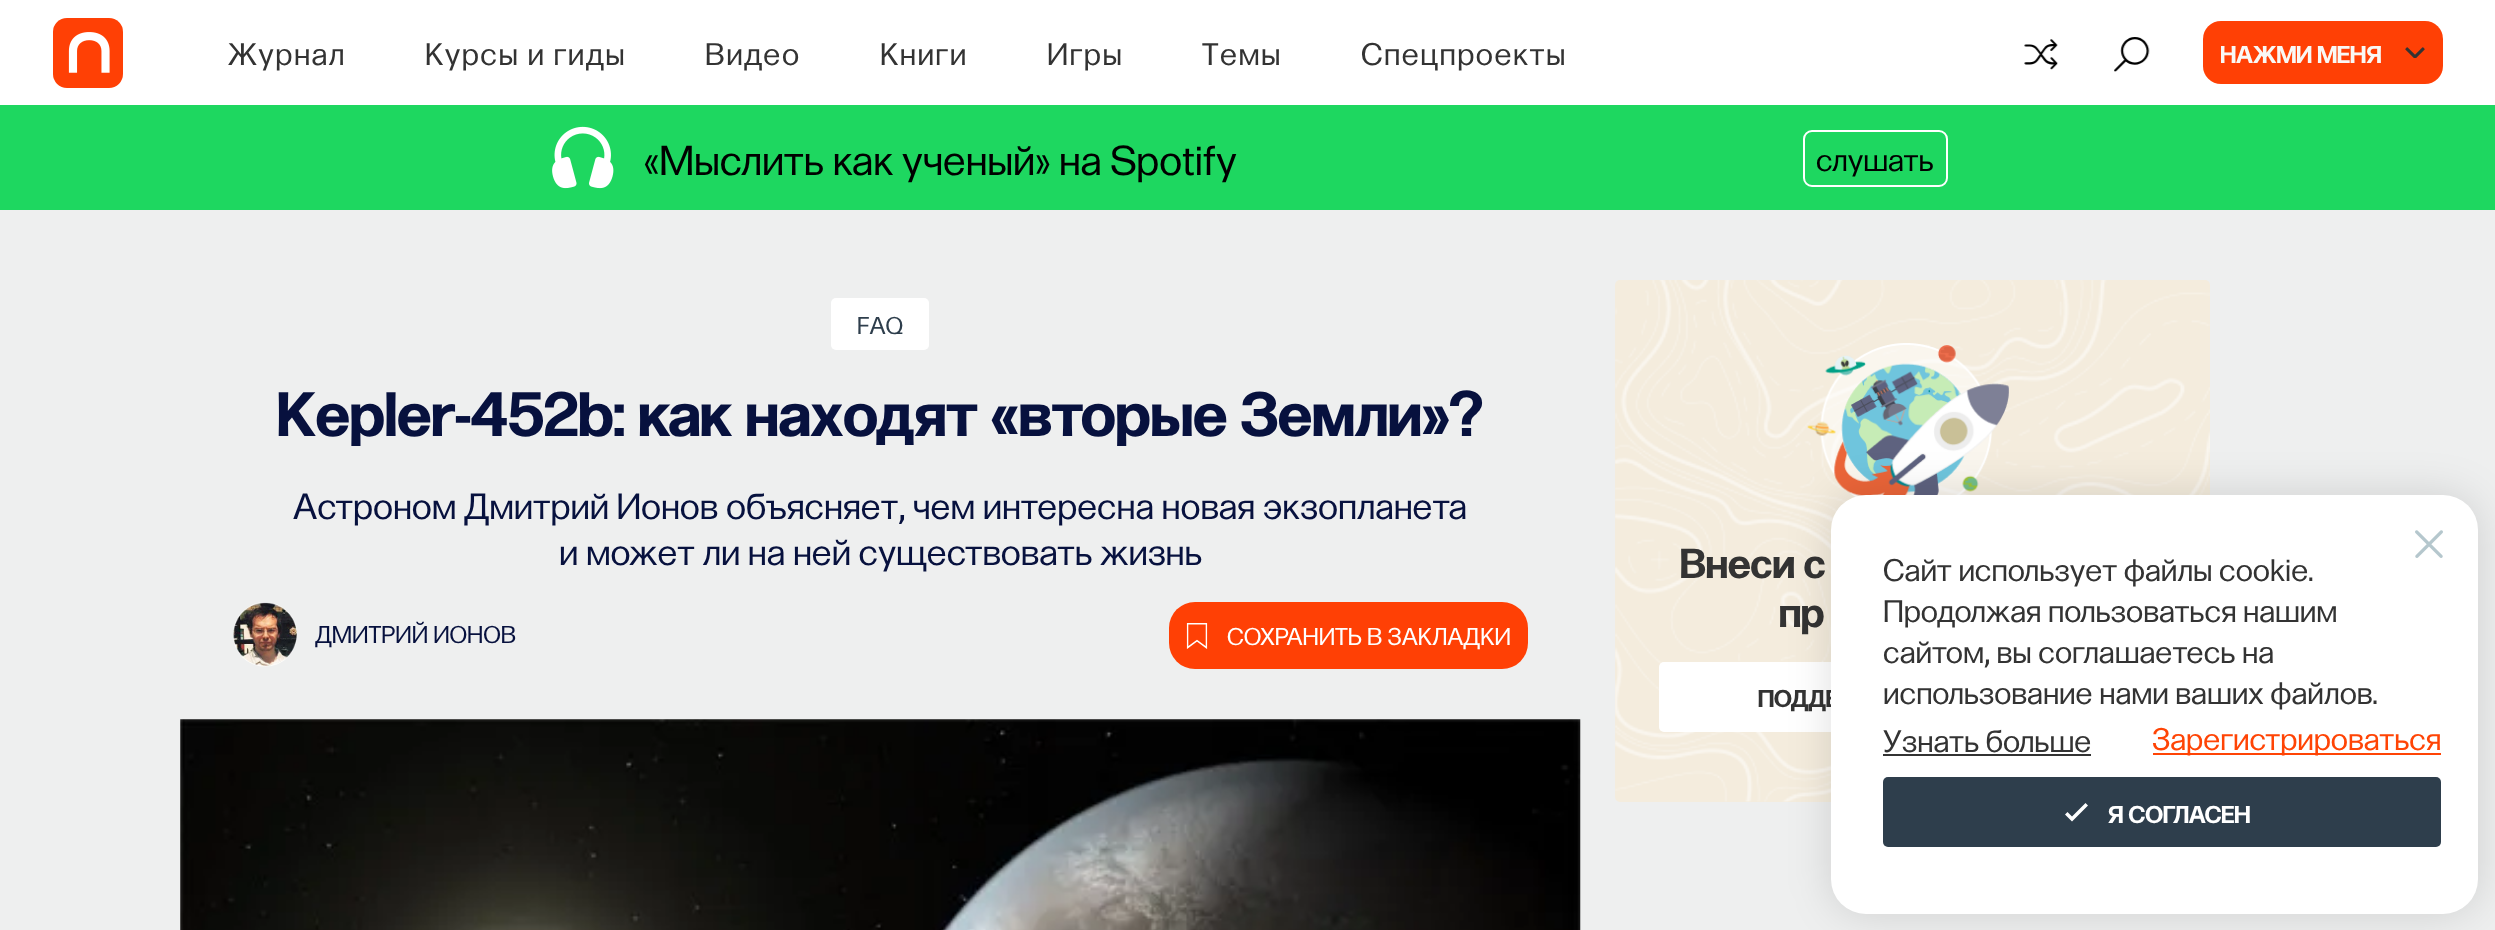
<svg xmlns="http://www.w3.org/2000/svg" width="2495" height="930">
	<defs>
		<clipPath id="clip1"><rect x="2221" y="37" width="161" height="31" /></clipPath>
		<clipPath id="clip2"><rect x="233" y="373" width="1295" height="73" /></clipPath>
	</defs>
	<rect width="100%" height="100%" fill="#EEEFEF" />
	<rect x="0" y="0" width="2495" height="105" fill="#FFFFFF" />
	<rect x="53" y="18" width="70" height="70" rx="14" fill="#FF4005" />
	<image x="68" y="32" width="42" height="41" href="assets/img1.png" />
	<g font-family="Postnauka" font-size="31.5" letter-spacing="1.5" fill="#333333">
		<text x="228" y="65">Журнал</text>
		<text x="425" y="65">Курсы и гиды</text>
		<text x="705" y="65">Видео</text>
		<text x="880" y="65">Книги</text>
		<text x="1047" y="65">Игры</text>
		<text x="1202" y="65">Темы</text>
		<text x="1361" y="65">Спецпроекты</text>
	</g>
	<image x="2024" y="39" width="34" height="31" href="assets/img2.png" />
	<image x="2114" y="37" width="36" height="35" href="assets/img3.png" />
	<rect x="2203" y="21" width="240" height="63" rx="18" fill="#FF4005" />
	<g clip-path="url(#clip1)">
		<text x="2220" y="63" font-family="Postnauka" font-size="24.5" font-weight="700" fill="#F9F8F5">НАЖМИ МЕНЯ</text>
	</g>
	<image x="2405" y="47" width="20" height="11" href="assets/img4.png" />
	<rect x="0" y="105" width="2495" height="105" fill="#1ED760" />
	<image x="552" y="126" width="62" height="63" href="assets/img5.png" />
	<text x="644" y="175" font-family="Postnauka" font-size="42" fill="#000000">«Мыслить как ученый» на Spotify</text>
	<rect x="1804" y="131" width="143" height="55" rx="8" fill="none" stroke="#FFFFFF" stroke-width="2" />
	<text x="1816" y="171" font-family="Postnauka" font-size="31.5" fill="#000000">слушать</text>
	<rect x="831" y="298" width="98" height="52" rx="5" fill="#FFFFFF" />
	<text x="857" y="334" font-family="Postnauka" font-size="24.5" fill="#2E3E4C">FAQ</text>
	<g clip-path="url(#clip2)">
		<text x="277" y="436" font-family="Postnauka" font-size="63" font-weight="700" fill="#07113E">Kepler-452b: как находят «вторые Земли»?</text>
	</g>
	<g font-family="Postnauka" font-size="36.75" fill="#07113E">
		<text x="293" y="519">Астроном Дмитрий Ионов объясняет, чем интересна новая экзопланета</text>
		<text x="559" y="565">и может ли на ней существовать жизнь</text>
	</g>
	<image x="233" y="602" width="64" height="65" href="assets/img6.png" />
	<text x="315" y="643" font-family="Postnauka" font-size="24.5" fill="#07113E">ДМИТРИЙ ИОНОВ</text>
	<rect x="1169" y="602" width="359" height="67" rx="26" fill="#FF4005" />
	<image x="1186" y="623" width="22" height="26" href="assets/img7.png" />
	<text x="1227" y="645" font-family="Postnauka" font-size="24.5" fill="#FFFFFF">СОХРАНИТЬ В ЗАКЛАДКИ</text>
	<image x="180" y="719" width="1401" height="211" href="assets/img8.png" />
	<rect x="1615" y="280" width="595" height="522" rx="5" fill="#F4ECDD" />
	<image x="1615" y="280" width="595" height="522" href="assets/img9.png" />
	<image x="1807" y="343" width="202" height="155" href="assets/img10.png" />
	<g font-family="Postnauka" font-size="42" font-weight="700" fill="#333333">
		<text x="1680" y="578">Внеси с</text>
		<text x="1779" y="627">пр</text>
	</g>
	<rect x="1659" y="662" width="508" height="70" rx="5" fill="#FFFFFF" />
	<text x="1758" y="707" font-family="Postnauka" font-size="24.5" font-weight="700" fill="#333333">ПОДДЕ</text>
	<rect x="1831" y="495" width="647" height="419" rx="35" fill="#000000" fill-opacity="0.13" filter="blur(22px)" />
	<rect x="1831" y="495" width="647" height="419" rx="35" fill="#FFFFFF" />
	<image x="2415" y="530" width="28" height="28" href="assets/img11.png" />
	<g font-family="Postnauka" font-size="31.5" fill="#333333">
		<text x="1883" y="581">Сайт использует файлы cookie.</text>
		<text x="1883" y="622">Продолжая пользоваться нашим</text>
		<text x="1883" y="663">сайтом, вы соглашаетесь на</text>
		<text x="1883" y="704">использование нами ваших файлов.</text>
		<text x="1883" y="752">Узнать больше</text>
	</g>
	<rect x="1883" y="754" width="208" height="2" fill="#333333" />
	<rect x="2153" y="753" width="288" height="2" fill="#FF4405" />
	<text x="2152" y="750" font-family="Postnauka" font-size="31.5" fill="#FF4405">Зарегистрироваться</text>
	<rect x="1883" y="777" width="558" height="70" rx="5" fill="#2E3E4C" />
	<path d="M2074.5 819L2072 821.5L2065 814.5L2067.5 812L2072 816.5L2085.5 803L2088 805.5Z" fill="#FFFFFF" fill-rule="evenodd" />
	<text x="2108" y="823" font-family="Postnauka" font-size="24.5" font-weight="700" fill="#FFFFFF">Я СОГЛАСЕН</text>
</svg>
